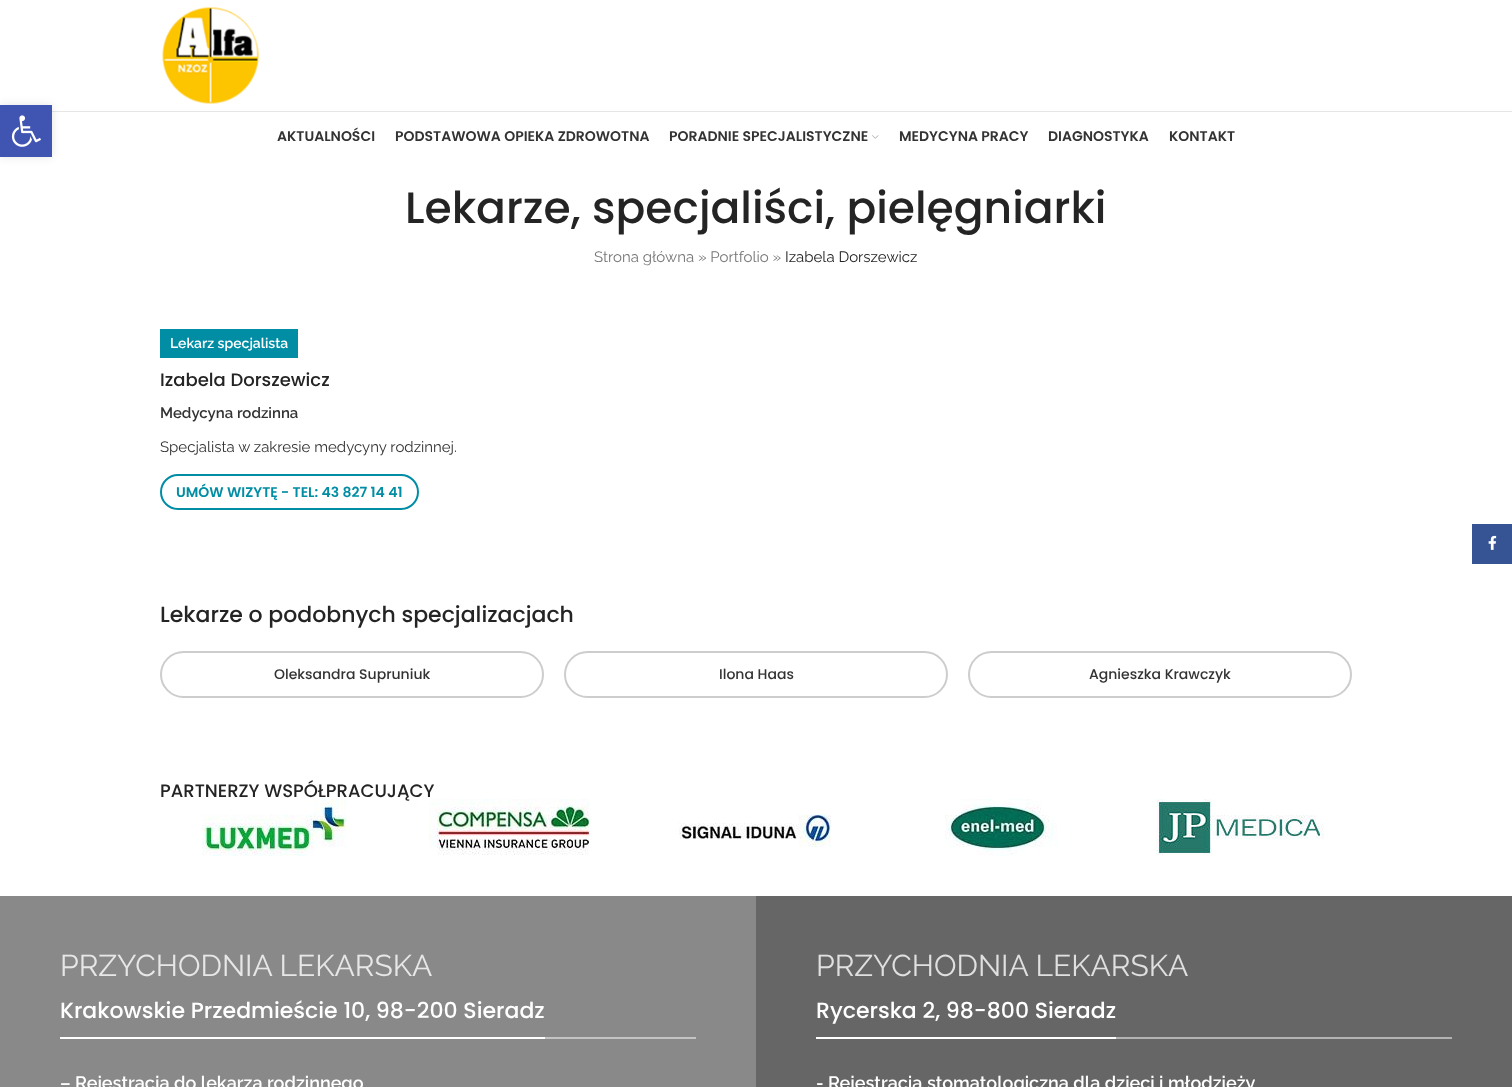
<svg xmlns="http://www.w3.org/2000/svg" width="1512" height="1087">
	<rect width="100%" height="100%" fill="#FFFFFF" />
	<rect x="52" y="111" width="1460" height="1" fill="#E6E6E6" />
	<rect x="0" y="105" width="52" height="52" fill="#000000" fill-opacity="0.1" filter="blur(5px)" />
	<rect x="0" y="105" width="52" height="52" fill="#4054B2" />
	<image x="11" y="115" width="30" height="32" href="assets/img1.png" />
	<image x="162" y="7" width="97" height="97" href="assets/img2.png" />
	<g font-family="Poppins" font-size="14" font-weight="600" fill="#333333">
		<text x="277" y="141">AKTUALNOŚCI</text>
		<text x="395" y="141">PODSTAWOWA OPIEKA ZDROWOTNA</text>
		<text x="669" y="141">PORADNIE SPECJALISTYCZNE</text>
	</g>
	<image x="872" y="135" width="7" height="4" href="assets/img3.png" />
	<g font-family="Poppins" font-size="14" font-weight="600" fill="#333333">
		<text x="899" y="141">MEDYCYNA PRACY</text>
		<text x="1048" y="141">DIAGNOSTYKA</text>
		<text x="1169" y="141">KONTAKT</text>
	</g>
	<text x="405" y="223" font-family="Poppins" font-size="44" font-weight="500" fill="#242424">Lekarze, specjaliści, pielęgniarki</text>
	<text x="594" y="262" font-family="Raleway" font-size="15" fill="#767676">Strona główna » Portfolio »</text>
	<text x="785" y="262" font-family="Raleway" font-size="15" fill="#242424">Izabela Dorszewicz</text>
	<rect x="160" y="329" width="138" height="29" fill="#018DA4" />
	<text x="170" y="348" font-family="Raleway" font-size="14" font-weight="600" fill="#FFFFFF">Lekarz specjalista</text>
	<text x="160" y="386" font-family="Poppins" font-size="18" font-weight="500" fill="#242424">Izabela Dorszewicz</text>
	<text x="160" y="418" font-family="Raleway" font-size="15" font-weight="600" fill="#333333">Medycyna rodzinna</text>
	<text x="160" y="452" font-family="Raleway" font-size="15" fill="#333333">Specjalista w zakresie medycyny rodzinnej.</text>
	<rect x="161" y="475" width="257" height="34" rx="17" fill="none" stroke="#018DA4" stroke-width="2" />
	<text x="176" y="497" font-family="Poppins" font-size="14" font-weight="600" fill="#018DA4">UMÓW WIZYTĘ - TEL: 43 827 14 41</text>
	<text x="160" y="622" font-family="Poppins" font-size="22" font-weight="500" fill="#242424">Lekarze o podobnych specjalizacjach</text>
	<rect x="161" y="652" width="382" height="45" rx="22.5" fill="none" stroke="#CDCDCD" stroke-width="2" />
	<text x="274" y="679" font-family="Poppins" font-size="14" font-weight="500" fill="#333333">Oleksandra Supruniuk</text>
	<rect x="565" y="652" width="382" height="45" rx="22.5" fill="none" stroke="#CDCDCD" stroke-width="2" />
	<text x="719" y="679" font-family="Poppins" font-size="14" font-weight="500" fill="#333333">Ilona Haas</text>
	<rect x="969" y="652" width="382" height="45" rx="22.5" fill="none" stroke="#CDCDCD" stroke-width="2" />
	<text x="1089" y="679" font-family="Poppins" font-size="14" font-weight="500" fill="#333333">Agnieszka Krawczyk</text>
	<text x="160" y="797" font-family="Poppins" font-size="18" font-weight="500" fill="#242424">PARTNERZY WSPÓŁPRACUJĄCY</text>
	<image x="202" y="799" width="145" height="57" href="assets/img4.png" />
	<image x="429" y="799" width="161" height="56" href="assets/img5.png" />
	<image x="679" y="814" width="152" height="33" href="assets/img6.png" />
	<image x="945" y="799" width="112" height="57" href="assets/img7.png" />
	<image x="1156" y="799" width="168" height="56" href="assets/img8.png" />
	<rect x="0" y="896" width="756" height="191" fill="#898989" />
	<text x="60" y="976" font-family="Raleway" font-size="30" fill="#E7E7E7">PRZYCHODNIA LEKARSKA</text>
	<rect x="545" y="1037" width="151" height="2" fill="#C4C4C4" />
	<rect x="60" y="1037" width="485" height="2" fill="#FFFFFF" />
	<text x="60" y="1018" font-family="Poppins" font-size="22" font-weight="500" fill="#FFFFFF">Krakowskie Przedmieście 10, 98-200 Sieradz</text>
	<text x="60" y="1089" font-family="Raleway" font-size="18" font-weight="600" fill="#FFFFFF">– Rejestracja do lekarza rodzinnego</text>
	<rect x="756" y="896" width="756" height="191" fill="#666666" />
	<text x="816" y="976" font-family="Raleway" font-size="30" fill="#E0E0E0">PRZYCHODNIA LEKARSKA</text>
	<rect x="1116" y="1037" width="336" height="2" fill="#B3B3B3" />
	<rect x="816" y="1037" width="300" height="2" fill="#FFFFFF" />
	<text x="816" y="1018" font-family="Poppins" font-size="22" font-weight="500" fill="#FFFFFF">Rycerska 2, 98-800 Sieradz</text>
	<text x="816" y="1089" font-family="Raleway" font-size="18" font-weight="600" fill="#FFFFFF">- Rejestracja stomatologiczna dla dzieci i młodzieży</text>
	<rect x="1472" y="524" width="40" height="40" fill="#365493" />
	<image x="1488" y="535" width="9" height="15" href="assets/img9.png" />
</svg>
